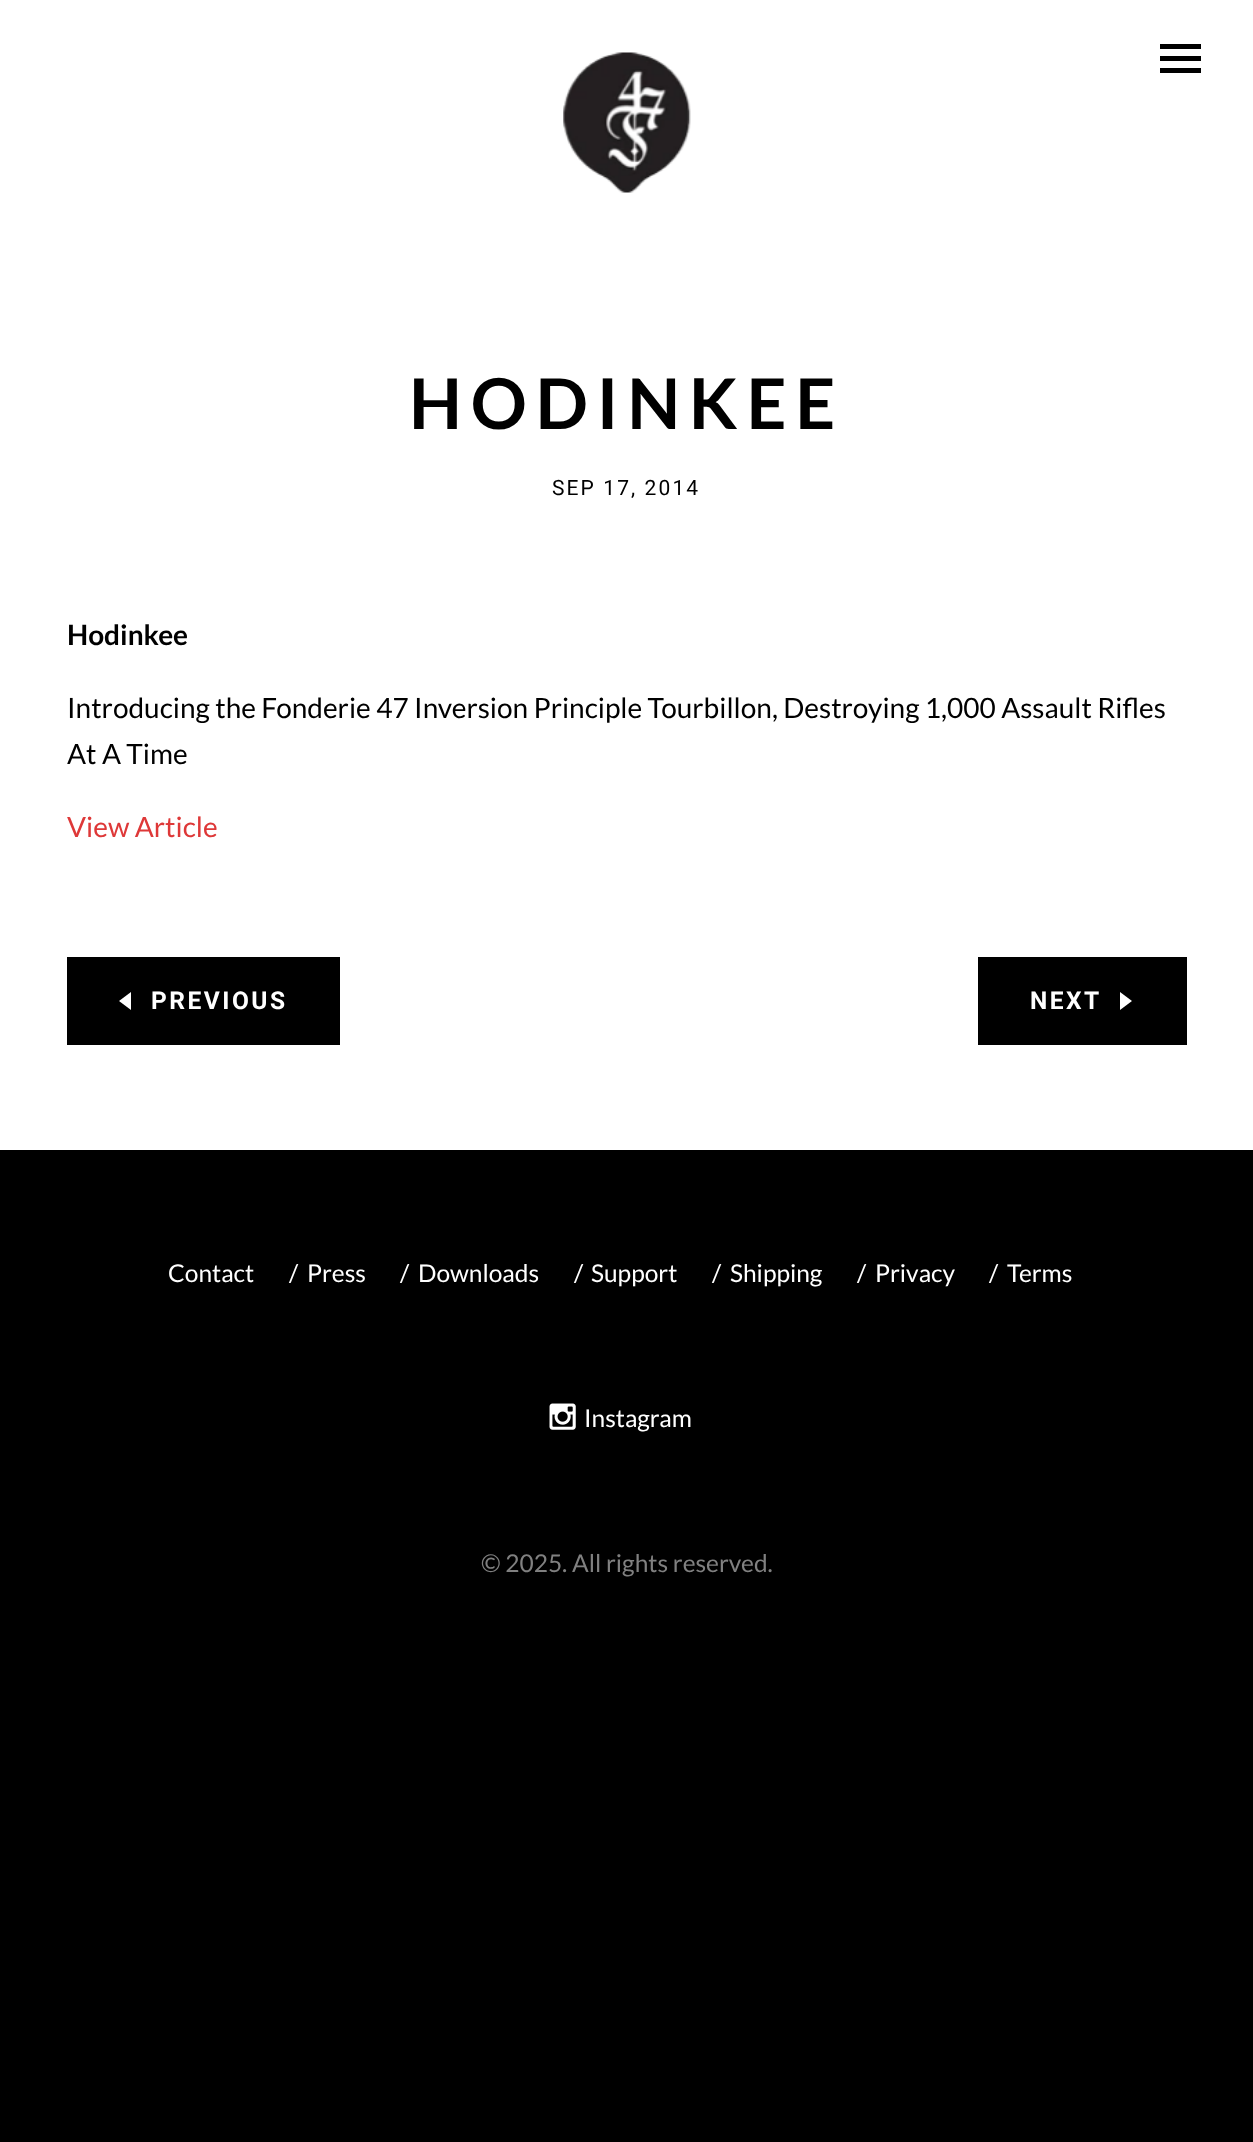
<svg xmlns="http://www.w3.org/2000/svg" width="1253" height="2142">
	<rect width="100%" height="100%" fill="#000000" />
	<rect x="0" y="0" width="1253" height="1150" fill="#FFFFFF" />
	<image x="563" y="52" width="128" height="141" href="assets/img1.png" />
	<rect x="1160" y="56" width="41" height="5" fill="#000000" />
	<rect x="1160" y="44" width="41" height="5" fill="#000000" />
	<rect x="1160" y="68" width="41" height="5" fill="#000000" />
	<text x="409" y="429" font-family="Lato" font-size="70" font-weight="700" letter-spacing="8.75" fill="#000000">HODINKEE</text>
	<text x="552" y="495" font-family="Roboto" font-size="21" letter-spacing="2.1" fill="#000000">SEP 17, 2014</text>
	<text x="67" y="645" font-family="Lato" font-size="28" font-weight="700" fill="#000000">Hodinkee</text>
	<g font-family="Lato" font-size="28" fill="#000000">
		<text x="67" y="718">Introducing the Fonderie 47 Inversion Principle Tourbillon, Destroying 1,000 Assault Rifles</text>
		<text x="67" y="764">At A Time</text>
	</g>
	<text x="67" y="837" font-family="Lato" font-size="28" fill="#DE3838">View Article</text>
	<rect x="67" y="957" width="273" height="88" fill="#000000" />
	<path d="M131 1010V992L119 1001Z" fill="#FFFFFF" />
	<text x="151" y="1009" font-family="Roboto" font-size="24.5" font-weight="700" letter-spacing="2.5" fill="#FFFFFF">PREVIOUS</text>
	<rect x="978" y="957" width="209" height="88" fill="#000000" />
	<text x="1030" y="1009" font-family="Roboto" font-size="24.5" font-weight="700" letter-spacing="2.5" fill="#FFFFFF">NEXT</text>
	<path d="M1120 992V1010L1132 1001Z" fill="#FFFFFF" />
	<g font-family="Lato" font-size="24.5" fill="#FFFFFF">
		<text x="168" y="1282">Contact</text>
		<text x="289" y="1282">/</text>
		<text x="307" y="1282">Press</text>
		<text x="400" y="1282">/</text>
		<text x="418" y="1282">Downloads</text>
		<text x="574" y="1282">/</text>
		<text x="591" y="1282">Support</text>
		<text x="712" y="1282">/</text>
		<text x="730" y="1282">Shipping</text>
		<text x="857" y="1282">/</text>
		<text x="875" y="1282">Privacy</text>
		<text x="989" y="1282">/</text>
		<text x="1007" y="1282">Terms</text>
	</g>
	<image x="549" y="1403" width="27" height="27" href="assets/img2.png" />
	<text x="584" y="1427" font-family="Lato" font-size="24.5" fill="#FFFFFF">Instagram</text>
	<text x="481" y="1572" font-family="Lato" font-size="24.5" fill="#808080">© 2025. All rights reserved.</text>
</svg>
